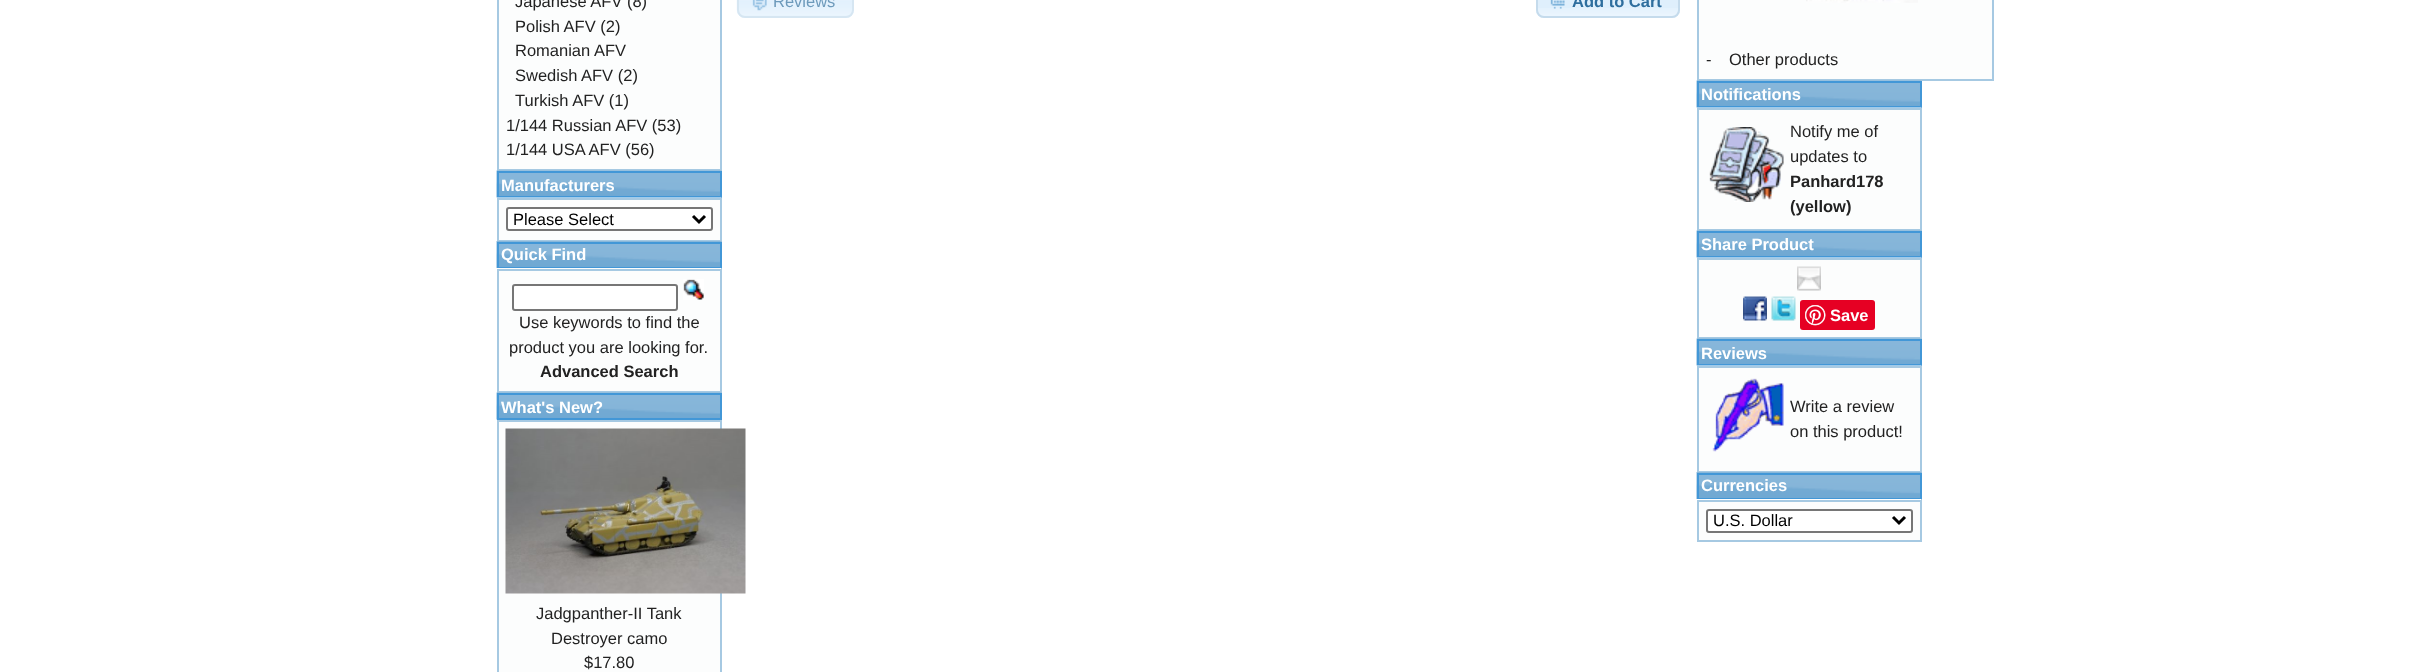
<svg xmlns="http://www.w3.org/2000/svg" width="2418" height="672">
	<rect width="100%" height="100%" fill="#FFFFFF" />
	<rect x="498" y="-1" width="223" height="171" fill="#FCFDFD" stroke="#A6C9E2" stroke-width="2" />
	<g font-family="Liberation Sans" font-size="16.5" fill="#222222">
		<text x="515" y="7">Japanese AFV (8)</text>
		<text x="515" y="32">Polish AFV (2)</text>
		<text x="515" y="56">Romanian AFV</text>
		<text x="515" y="81">Swedish AFV (2)</text>
		<text x="515" y="106">Turkish AFV (1)</text>
		<text x="506" y="131">1/144 Russian AFV (53)</text>
		<text x="506" y="155">1/144 USA AFV (56)</text>
	</g>
	<image x="496" y="170" width="226" height="28" href="assets/img1.png" />
	<rect x="498" y="172" width="223" height="25" fill="none" stroke="#4297D7" stroke-width="2" />
	<text x="501" y="191" font-family="Liberation Sans" font-size="16.5" font-weight="700" fill="#FFFFFF">Manufacturers</text>
	<rect x="498" y="199" width="223" height="42" fill="#FCFDFD" stroke="#A6C9E2" stroke-width="2" />
	<image x="496" y="197" width="226" height="1" href="assets/img2.png" />
	<rect x="507" y="208" width="205" height="22" rx="2" fill="#FFFFFF" stroke="#767676" stroke-width="2" />
	<path d="M693 216L699 222L705 216" fill="none" stroke="#000000" stroke-width="3" />
	<text x="513" y="225" font-family="Liberation Sans" font-size="16.5" fill="#000000">Please Select</text>
	<image x="496" y="241" width="226" height="27" href="assets/img3.png" />
	<rect x="498" y="243" width="223" height="25" fill="none" stroke="#4297D7" stroke-width="2" />
	<text x="501" y="260" font-family="Liberation Sans" font-size="16.5" font-weight="700" fill="#FFFFFF">Quick Find</text>
	<rect x="498" y="270" width="223" height="122" fill="#FCFDFD" stroke="#A6C9E2" stroke-width="2" />
	<image x="497" y="268" width="225" height="1" href="assets/img4.png" />
	<rect x="513" y="285" width="164" height="25" rx="2" fill="#FFFFFF" stroke="#767676" stroke-width="2" />
	<image x="683" y="279" width="21" height="21" href="assets/img5.png" />
	<g font-family="Liberation Sans" font-size="16.5" fill="#222222">
		<text x="519" y="328">Use keywords to find the</text>
		<text x="509" y="353">product you are looking for.</text>
	</g>
	<text x="540" y="377" font-family="Liberation Sans" font-size="16.5" font-weight="700" fill="#222222">Advanced Search</text>
	<image x="496" y="392" width="226" height="28" href="assets/img1.png" />
	<rect x="498" y="394" width="223" height="25" fill="none" stroke="#4297D7" stroke-width="2" />
	<text x="501" y="413" font-family="Liberation Sans" font-size="16.5" font-weight="700" fill="#FFFFFF">What's New?</text>
	<rect x="498" y="421" width="223" height="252" fill="#FCFDFD" stroke="#A6C9E2" stroke-width="2" />
	<image x="505" y="428" width="241" height="166" href="assets/img6.png" />
	<g font-family="Liberation Sans" font-size="16.5" fill="#222222">
		<text x="536" y="619">Jadgpanther-II Tank</text>
		<text x="551" y="644">Destroyer camo</text>
		<text x="584" y="668">$17.80</text>
	</g>
	<rect x="737" y="-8" width="117" height="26" rx="8" fill="#E9F4FD" />
	<image x="736" y="0" width="117" height="15" href="assets/img7.png" />
	<rect x="738" y="-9" width="115" height="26" rx="7" fill="none" stroke="#D6E6F2" stroke-width="2" />
	<image x="752" y="0" width="15" height="11" href="assets/img8.png" />
	<text x="773" y="7" font-family="Liberation Sans" font-size="16.5" fill="#6D9ABB">Reviews</text>
	<rect x="1536" y="-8" width="144" height="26" rx="8" fill="#DFEFFC" />
	<image x="1536" y="8" width="144" height="10" href="assets/img9.png" />
	<rect x="1537" y="-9" width="142" height="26" rx="7" fill="none" stroke="#C5DBEC" stroke-width="2" />
	<image x="1550" y="0" width="15" height="9" href="assets/img10.png" />
	<text x="1572" y="7" font-family="Liberation Sans" font-size="16.5" font-weight="700" fill="#2E6E9E">Add to Cart</text>
	<rect x="1698" y="-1" width="295" height="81" fill="#FCFDFD" stroke="#A6C9E2" stroke-width="2" />
	<image x="1806" y="0" width="112" height="3" href="assets/img11.png" />
	<g font-family="Liberation Sans" font-size="16.5" fill="#222222">
		<text x="1706" y="65">-</text>
		<text x="1729" y="65">Other products</text>
	</g>
	<image x="1696" y="80" width="226" height="28" href="assets/img12.png" />
	<rect x="1698" y="82" width="223" height="25" fill="none" stroke="#4297D7" stroke-width="2" />
	<text x="1701" y="100" font-family="Liberation Sans" font-size="16.5" font-weight="700" fill="#FFFFFF">Notifications</text>
	<rect x="1698" y="109" width="223" height="121" fill="#FCFDFD" stroke="#A6C9E2" stroke-width="2" />
	<image x="1696" y="107" width="226" height="1" href="assets/img13.png" />
	<image x="1709" y="127" width="75" height="75" href="assets/img14.png" />
	<g font-family="Liberation Sans" font-size="16.5" fill="#222222">
		<text x="1790" y="137">Notify me of</text>
		<text x="1790" y="162">updates to</text>
	</g>
	<g font-family="Liberation Sans" font-size="16.5" font-weight="700" fill="#222222">
		<text x="1790" y="187">Panhard178</text>
		<text x="1790" y="212">(yellow)</text>
	</g>
	<image x="1696" y="230" width="226" height="28" href="assets/img12.png" />
	<rect x="1698" y="232" width="223" height="25" fill="none" stroke="#4297D7" stroke-width="2" />
	<text x="1701" y="250" font-family="Liberation Sans" font-size="16.5" font-weight="700" fill="#FFFFFF">Share Product</text>
	<rect x="1698" y="259" width="223" height="79" fill="#FCFDFD" stroke="#A6C9E2" stroke-width="2" />
	<image x="1696" y="257" width="226" height="1" href="assets/img15.png" />
	<image x="1797" y="266" width="24" height="25" href="assets/img16.png" />
	<image x="1743" y="296" width="24" height="25" href="assets/img17.png" />
	<image x="1771" y="296" width="25" height="25" href="assets/img18.png" />
	<rect x="1800" y="300" width="75" height="30" rx="3" fill="#E60023" />
	<image x="1805" y="305" width="21" height="21" href="assets/img19.png" />
	<text x="1830" y="321" font-family="Liberation Sans" font-size="16.5" font-weight="700" fill="#FFFFFF">Save</text>
	<image x="1696" y="338" width="226" height="28" href="assets/img12.png" />
	<rect x="1698" y="340" width="223" height="25" fill="none" stroke="#4297D7" stroke-width="2" />
	<text x="1701" y="359" font-family="Liberation Sans" font-size="16.5" font-weight="700" fill="#FFFFFF">Reviews</text>
	<rect x="1698" y="367" width="223" height="105" fill="#FCFDFD" stroke="#A6C9E2" stroke-width="2" />
	<image x="1696" y="365" width="226" height="1" href="assets/img13.png" />
	<image x="1712" y="378" width="72" height="74" href="assets/img20.png" />
	<g font-family="Liberation Sans" font-size="16.5" fill="#222222">
		<text x="1790" y="412">Write a review</text>
		<text x="1790" y="437">on this product!</text>
	</g>
	<image x="1696" y="472" width="226" height="27" href="assets/img21.png" />
	<rect x="1698" y="474" width="223" height="25" fill="none" stroke="#4297D7" stroke-width="2" />
	<text x="1701" y="491" font-family="Liberation Sans" font-size="16.5" font-weight="700" fill="#FFFFFF">Currencies</text>
	<rect x="1698" y="501" width="223" height="40" fill="#FCFDFD" stroke="#A6C9E2" stroke-width="2" />
	<image x="1697" y="499" width="225" height="1" href="assets/img22.png" />
	<rect x="1707" y="510" width="205" height="22" rx="2" fill="#FFFFFF" stroke="#767676" stroke-width="2" />
	<path d="M1893 517L1899 523L1905 517" fill="none" stroke="#000000" stroke-width="3" />
	<text x="1713" y="526" font-family="Liberation Sans" font-size="16.5" fill="#000000">U.S. Dollar</text>
</svg>
